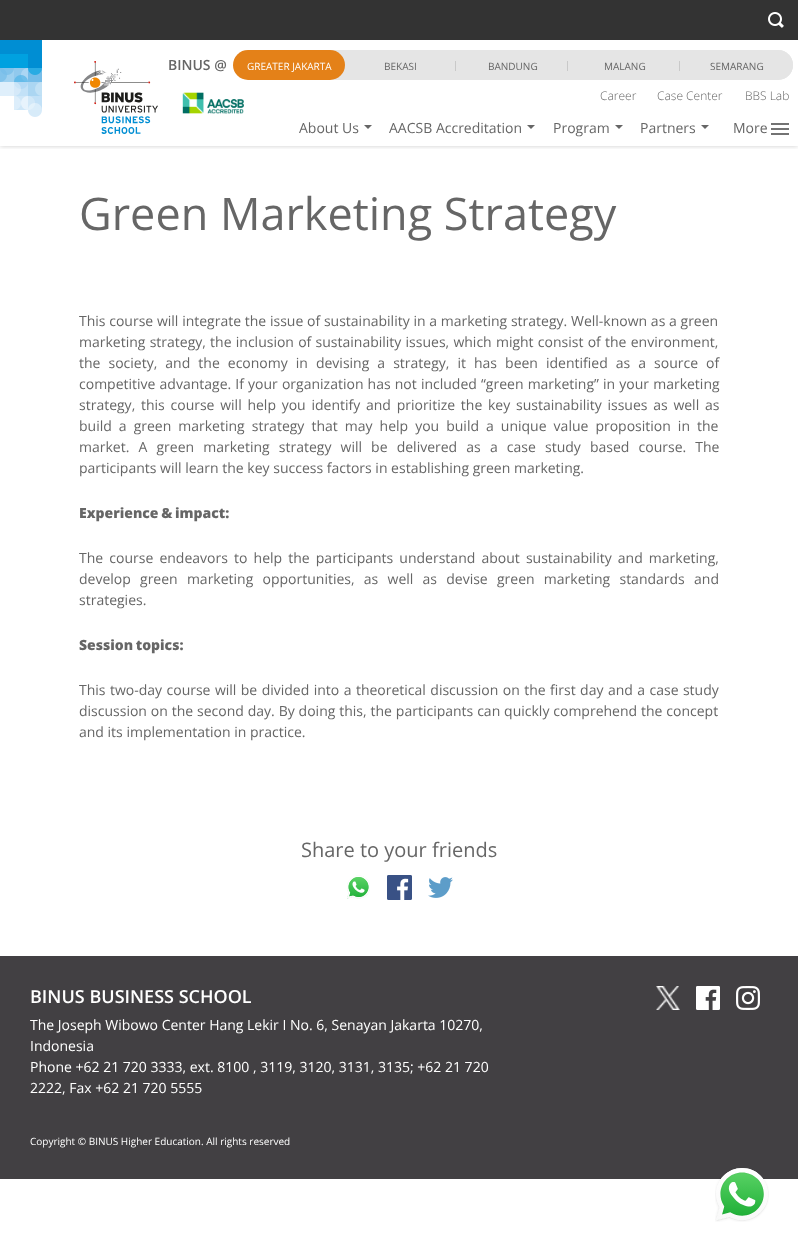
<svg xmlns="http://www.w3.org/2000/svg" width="798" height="1251">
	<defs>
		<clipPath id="clip1"><rect x="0" y="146" width="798" height="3" /></clipPath>
	</defs>
	<rect width="100%" height="100%" fill="#FFFFFF" />
	<g clip-path="url(#clip1)">
		<rect x="0" y="40" width="798" height="106" fill="#000000" fill-opacity="0.2" filter="blur(2.5px)" />
	</g>
	<rect x="0" y="0" width="798" height="40" fill="#333333" />
	<image x="768" y="12" width="16" height="16" href="assets/img1.png" />
	<image x="0" y="40" width="42" height="77" href="assets/img2.png" />
	<image x="74" y="61" width="170" height="73" href="assets/img3.png" />
	<rect x="168" y="50" width="625" height="30" rx="15" fill="#E5E5E5" />
	<rect x="168" y="50" width="80" height="30" fill="#FFFFFF" />
	<text x="168" y="70" font-family="Open Sans" font-size="14" font-weight="600" fill="#666666">BINUS @</text>
	<rect x="233" y="50" width="112" height="30" rx="15" fill="#E48118" />
	<text x="247" y="70" font-family="Open Sans" font-size="10" fill="#FFFFFF">GREATER JAKARTA</text>
	<rect x="455" y="61" width="1" height="10" fill="#C9C9C9" />
	<text x="384" y="70" font-family="Open Sans" font-size="10" fill="#666666">BEKASI</text>
	<rect x="567" y="61" width="1" height="10" fill="#C9C9C9" />
	<text x="488" y="70" font-family="Open Sans" font-size="10" fill="#666666">BANDUNG</text>
	<rect x="679" y="61" width="1" height="10" fill="#C9C9C9" />
	<text x="604" y="70" font-family="Open Sans" font-size="10" fill="#666666">MALANG</text>
	<path d="M681 50H778C786.5 50 793 56.5 793 65C793 73.5 786.5 80 778 80H681Z" fill="#E5E5E5" />
	<text x="710" y="70" font-family="Open Sans" font-size="10" fill="#666666">SEMARANG</text>
	<g font-family="Open Sans" font-size="12" font-weight="300" fill="#666666">
		<text x="600" y="100">Career</text>
		<text x="657" y="100">Case Center</text>
		<text x="745" y="100">BBS Lab</text>
	</g>
	<text x="299" y="133" font-family="Open Sans" font-size="14" fill="#666666">About Us</text>
	<path d="M364 125H372L368 129Z" fill="#666666" />
	<text x="389" y="133" font-family="Open Sans" font-size="14" fill="#666666">AACSB Accreditation</text>
	<path d="M527 125H535L531 129Z" fill="#666666" />
	<text x="553" y="133" font-family="Open Sans" font-size="14" fill="#666666">Program</text>
	<path d="M615 125H623L619 129Z" fill="#666666" />
	<text x="640" y="133" font-family="Open Sans" font-size="14" fill="#666666">Partners</text>
	<path d="M701 125H709L705 129Z" fill="#666666" />
	<text x="733" y="133" font-family="Open Sans" font-size="14" fill="#666666">More</text>
	<image x="771" y="123" width="18" height="12" href="assets/img4.png" />
	<text x="79" y="230" font-family="Open Sans" font-size="45" fill="#666666">Green Marketing Strategy</text>
	<g font-family="Open Sans" font-size="14" fill="#666666">
		<text x="79" y="326" word-spacing="0.1">This course will integrate the issue of sustainability in a marketing strategy. Well-known as a green</text>
		<text x="79" y="347" word-spacing="0.6">marketing strategy, the inclusion of sustainability issues, which might consist of the environment,</text>
		<text x="79" y="368" word-spacing="4.4">the society, and the economy in devising a strategy, it has been identified as a source of</text>
		<text x="79" y="389" word-spacing="0.5">competitive advantage. If your organization has not included “green marketing” in your marketing</text>
		<text x="79" y="410" word-spacing="2.1">strategy, this course will help you identify and prioritize the key sustainability issues as well as</text>
		<text x="79" y="431" word-spacing="3.4">build a green marketing strategy that may help you build a unique value proposition in the</text>
		<text x="79" y="452" word-spacing="5.5">market. A green marketing strategy will be delivered as a case study based course. The</text>
		<text x="79" y="473">participants will learn the key success factors in establishing green marketing.</text>
	</g>
	<text x="79" y="518" word-spacing="-1" font-family="Open Sans" font-size="14" font-weight="800" fill="#666666">Experience &amp; impact:</text>
	<g font-family="Open Sans" font-size="14" fill="#666666">
		<text x="79" y="563" word-spacing="2.5">The course endeavors to help the participants understand about sustainability and marketing,</text>
		<text x="79" y="584" word-spacing="5.6">develop green marketing opportunities, as well as devise green marketing standards and</text>
		<text x="79" y="605">strategies.</text>
	</g>
	<text x="79" y="650" word-spacing="-1" font-family="Open Sans" font-size="14" font-weight="800" fill="#666666">Session topics:</text>
	<g font-family="Open Sans" font-size="14" fill="#666666">
		<text x="79" y="695" word-spacing="0.8">This two-day course will be divided into a theoretical discussion on the first day and a case study</text>
		<text x="79" y="716" word-spacing="0.25">discussion on the second day. By doing this, the participants can quickly comprehend the concept</text>
		<text x="79" y="737">and its implementation in practice.</text>
	</g>
	<text x="301" y="857" font-family="Open Sans" font-size="20" fill="#666666">Share to your friends</text>
	<image x="347" y="875" width="23" height="24" href="assets/img5.png" />
	<image x="387" y="875" width="25" height="25" href="assets/img6.png" />
	<image x="428" y="877" width="25" height="21" href="assets/img7.png" />
	<rect x="0" y="956" width="798" height="223" fill="#424043" />
	<text x="30" y="1003" font-family="Open Sans" font-size="18" font-weight="600" fill="#FFFFFF">BINUS BUSINESS SCHOOL</text>
	<g font-family="Open Sans" font-size="14" fill="#FFFFFF">
		<text x="30" y="1030">The Joseph Wibowo Center Hang Lekir I No. 6, Senayan Jakarta 10270,</text>
		<text x="30" y="1051">Indonesia</text>
		<text x="30" y="1072">Phone +62 21 720 3333, ext. 8100 , 3119, 3120, 3131, 3135; +62 21 720</text>
		<text x="30" y="1093">2222, Fax +62 21 720 5555</text>
	</g>
	<image x="656" y="986" width="24" height="24" href="assets/img8.png" />
	<image x="696" y="986" width="24" height="24" href="assets/img9.png" />
	<image x="736" y="986" width="24" height="24" href="assets/img10.png" />
	<text x="30" y="1145" font-family="Open Sans" font-size="10" fill="#FFFFFF">Copyright © BINUS Higher Education. All rights reserved</text>
	<image x="715" y="1168" width="54" height="54" href="assets/img11.png" />
</svg>
